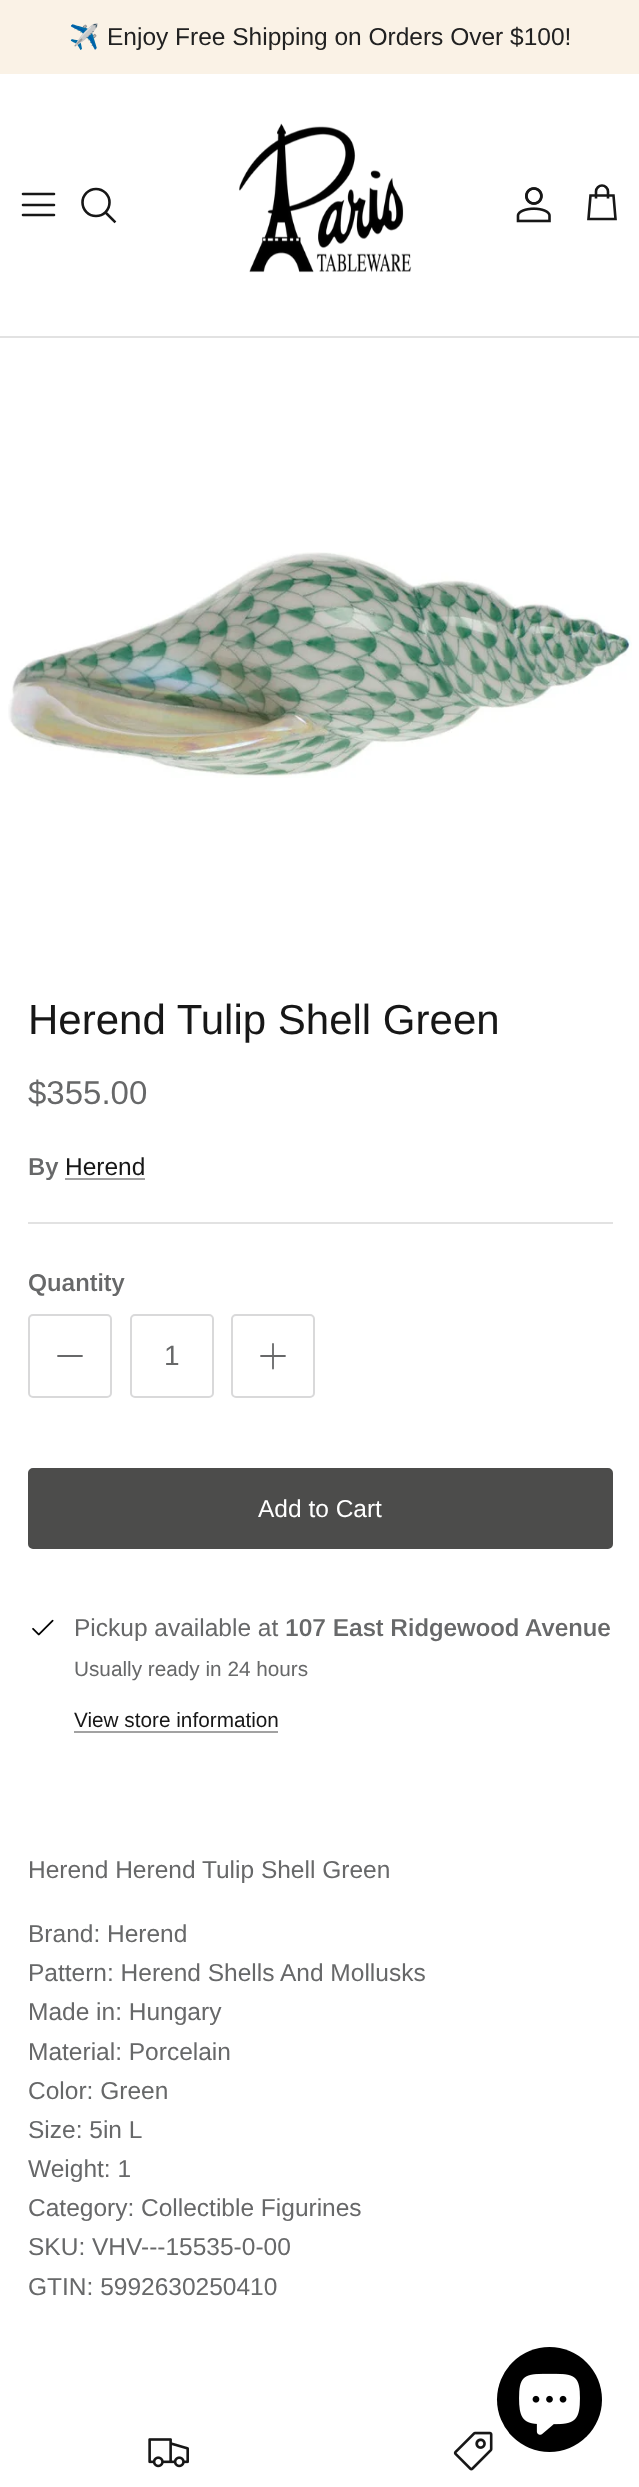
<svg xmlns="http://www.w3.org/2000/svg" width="639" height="2487">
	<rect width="100%" height="100%" fill="#FFFFFF" />
	<rect x="0" y="0" width="639" height="74" fill="#FAF2E6" />
	<text x="69" y="45" font-family="Noto Color Emoji" font-size="24.5" fill="#212121">✈️</text>
	<text x="107" y="45" font-family="Arimo" font-size="24.5" fill="#212121">Enjoy Free Shipping on Orders Over $100!</text>
	<rect x="0" y="336" width="639" height="2" fill="#E2E2E2" />
	<path d="M23 205H54M23 194H54M23 215H54" fill="none" stroke="#171717" stroke-width="2.6" stroke-linecap="round" stroke-linejoin="round" />
	<circle cx="96" cy="202.5" r="13.5" fill="none" stroke="#171717" stroke-width="2.6" />
	<path d="M106.5 213.5L114.5 221.5" fill="none" stroke="#171717" stroke-width="2.6" stroke-linecap="square" />
	<image x="239" y="123" width="173" height="150" href="assets/img1.png" />
	<image x="516" y="187" width="35" height="36" href="assets/img2.png" />
	<path d="M608 198.5V191.5C608 188 605 185.5 602 185.5C599 185.5 596 188 596 191.5V198.5M590.5 195.5H613.5L615.5 219H588.5Z" fill="none" stroke="#171717" stroke-width="2.6" />
	<image x="8" y="552" width="624" height="226" href="assets/img3.png" />
	<text x="28" y="1034" font-family="Arimo" font-size="42" fill="#171717">Herend Tulip Shell Green</text>
	<text x="28" y="1104" font-family="Arimo" font-size="33" fill="#676869">$355.00</text>
	<text x="28" y="1175" font-family="Arimo" font-size="24.5" font-weight="600" fill="#676869">By</text>
	<text x="65" y="1175" font-family="Arimo" font-size="24.5" fill="#171717">Herend</text>
	<rect x="65" y="1178" width="80" height="2" fill="#A2A2A2" />
	<rect x="28" y="1222" width="585" height="2" fill="#E2E2E2" />
	<text x="28" y="1291" font-family="Arimo" font-size="24.5" font-weight="600" fill="#676869">Quantity</text>
	<rect x="29" y="1315" width="82" height="82" rx="4" fill="none" stroke="#D9D9DA" stroke-width="2" />
	<path d="M58 1356H82" fill="none" stroke="#676869" stroke-width="1.8" stroke-linecap="round" stroke-linejoin="round" />
	<rect x="131" y="1315" width="82" height="82" rx="4" fill="none" stroke="#D9D9DA" stroke-width="2" />
	<text x="164" y="1365" font-family="Arimo" font-size="28" fill="#676869">1</text>
	<rect x="232" y="1315" width="82" height="82" rx="4" fill="none" stroke="#D9D9DA" stroke-width="2" />
	<path d="M273 1344V1368.5M261 1356H285" fill="none" stroke="#676869" stroke-width="1.8" stroke-linecap="round" stroke-linejoin="round" />
	<rect x="29" y="1469" width="583" height="79" rx="4" fill="#4C4C4B" stroke="#4C4C4B" stroke-width="2" />
	<text x="258" y="1517" font-family="Arimo" font-size="24.5" fill="#FFFFFF">Add to Cart</text>
	<image x="32" y="1619" width="22" height="17" href="assets/img4.png" />
	<text x="74" y="1636" font-family="Arimo" font-size="24.5" fill="#676869">Pickup available at</text>
	<text x="285" y="1636" font-family="Arimo" font-size="24.5" font-weight="600" fill="#676869">107 East Ridgewood Avenue</text>
	<text x="74" y="1676" font-family="Arimo" font-size="20.75" fill="#676869">Usually ready in 24 hours</text>
	<text x="74" y="1727" font-family="Arimo" font-size="20.75" fill="#171717">View store information</text>
	<rect x="74" y="1731" width="204" height="2" fill="#A2A2A2" />
	<g font-family="Arimo" font-size="24.5" fill="#676869">
		<text x="28" y="1878">Herend Herend Tulip Shell Green</text>
		<text x="28" y="1942">Brand: Herend</text>
		<text x="28" y="1981">Pattern: Herend Shells And Mollusks</text>
		<text x="28" y="2020">Made in: Hungary</text>
		<text x="28" y="2060">Material: Porcelain</text>
		<text x="28" y="2099">Color: Green</text>
		<text x="28" y="2138">Size: 5in L</text>
		<text x="28" y="2177">Weight: 1</text>
		<text x="28" y="2216">Category: Collectible Figurines</text>
		<text x="28" y="2255">SKU: VHV---15535-0-00</text>
		<text x="28" y="2295">GTIN: 5992630250410</text>
	</g>
	<image x="148" y="2438" width="41" height="30" href="assets/img5.png" />
	<image x="453" y="2431" width="40" height="40" href="assets/img6.png" />
	<circle cx="549.5" cy="2399.5" r="52.5" fill="#000000" />
	<image x="519" y="2373" width="61" height="62" href="assets/img7.png" />
</svg>
